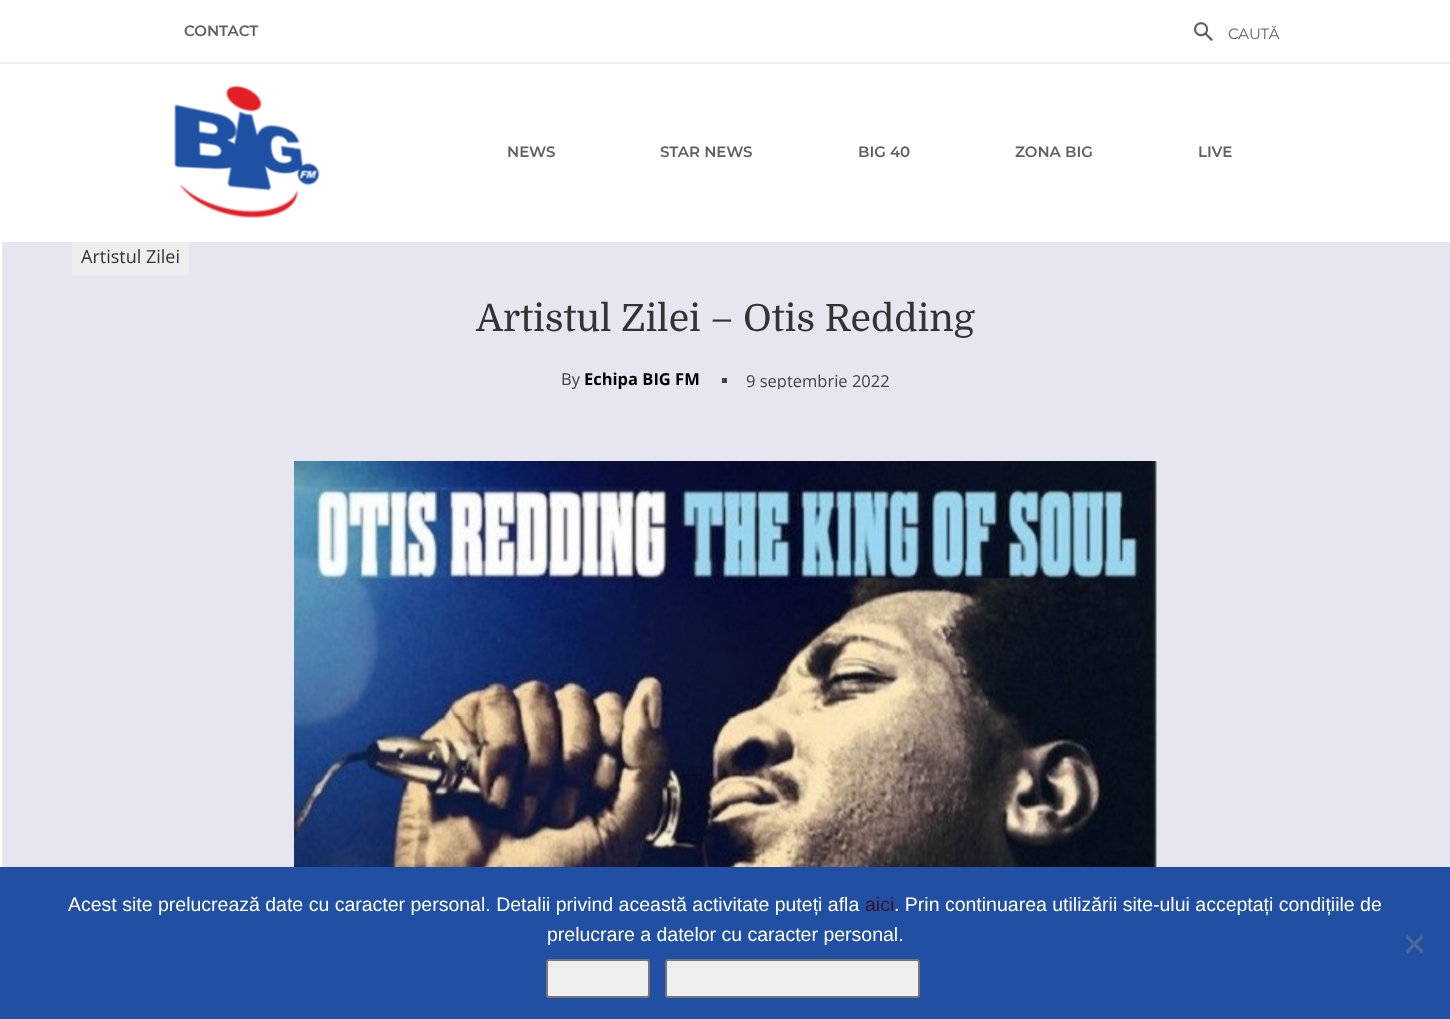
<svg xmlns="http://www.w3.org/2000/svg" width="1450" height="1019">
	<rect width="100%" height="100%" fill="#FFFFFF" />
	<text x="184" y="36" font-family="Montserrat" font-size="15" font-weight="600" fill="#626060">CONTACT</text>
	<image x="1194" y="22" width="19" height="19" href="assets/img1.png" />
	<text x="1228" y="39" font-family="Montserrat" font-size="15" fill="#626060">CAUTĂ</text>
	<rect x="0" y="62" width="1450" height="2" fill="#EEEEEE" />
	<image x="174" y="86" width="146" height="132" href="assets/img2.png" />
	<g font-family="Montserrat" font-size="15" font-weight="600" fill="#626060">
		<text x="507" y="157">NEWS</text>
		<text x="660" y="157">STAR NEWS</text>
		<text x="858" y="157">BIG 40</text>
		<text x="1015" y="157">ZONA BIG</text>
		<text x="1198" y="157">LIVE</text>
	</g>
	<rect x="2" y="242" width="1448" height="147" fill="#E7E6F0" />
	<rect x="72" y="242" width="117" height="33" fill="#EEEEEE" />
	<text x="81" y="263" font-family="Open Sans" font-size="18" fill="#333333">Artistul Zilei</text>
	<text x="476" y="331" font-family="Domine" font-size="37.5" fill="#333333">Artistul Zilei – Otis Redding</text>
	<text x="561" y="385" font-family="Open Sans" font-size="16.5" fill="#444444">By</text>
	<text x="584" y="385" font-family="Open Sans" font-size="16.5" font-weight="700" fill="#000000">Echipa BIG FM</text>
	<rect x="722" y="378" width="5" height="5" fill="#444444" />
	<text x="746" y="387" font-family="Open Sans" font-size="16.5" fill="#444444">9 septembrie 2022</text>
	<rect x="2" y="389" width="1448" height="478" fill="#E7E6F0" />
	<image x="294" y="461" width="863" height="406" href="assets/img3.png" />
	<rect x="0" y="867" width="1450" height="152" fill="#214FA3" />
	<text x="68" y="911" font-family="Liberation Sans" font-size="19.5" fill="#FFFFFF">Acest site prelucrează date cu caracter personal. Detalii privind această activitate puteți afla</text>
	<text x="865" y="911" font-family="Liberation Sans" font-size="19.5" fill="#3E1322">aici</text>
	<g font-family="Liberation Sans" font-size="19.5" fill="#FFFFFF">
		<text x="894" y="911">. Prin continuarea utilizării site-ului acceptați condițiile de</text>
		<text x="547" y="941">prelucrare a datelor cu caracter personal.</text>
	</g>
	<path d="M1421.5 935L1423.5 937.5L1407.5 953.5L1405.5 951Z" fill="#516892" />
	<path d="M1405.5 937.5L1407.5 935L1423.5 951L1421.5 953.5Z" fill="#516892" />
	<rect x="547" y="960" width="102" height="37" rx="2" fill="#EFEFEF" stroke="#767676" stroke-width="2" />
	<rect x="666" y="960" width="253" height="37" rx="2" fill="#EFEFEF" stroke="#767676" stroke-width="2" />
</svg>
